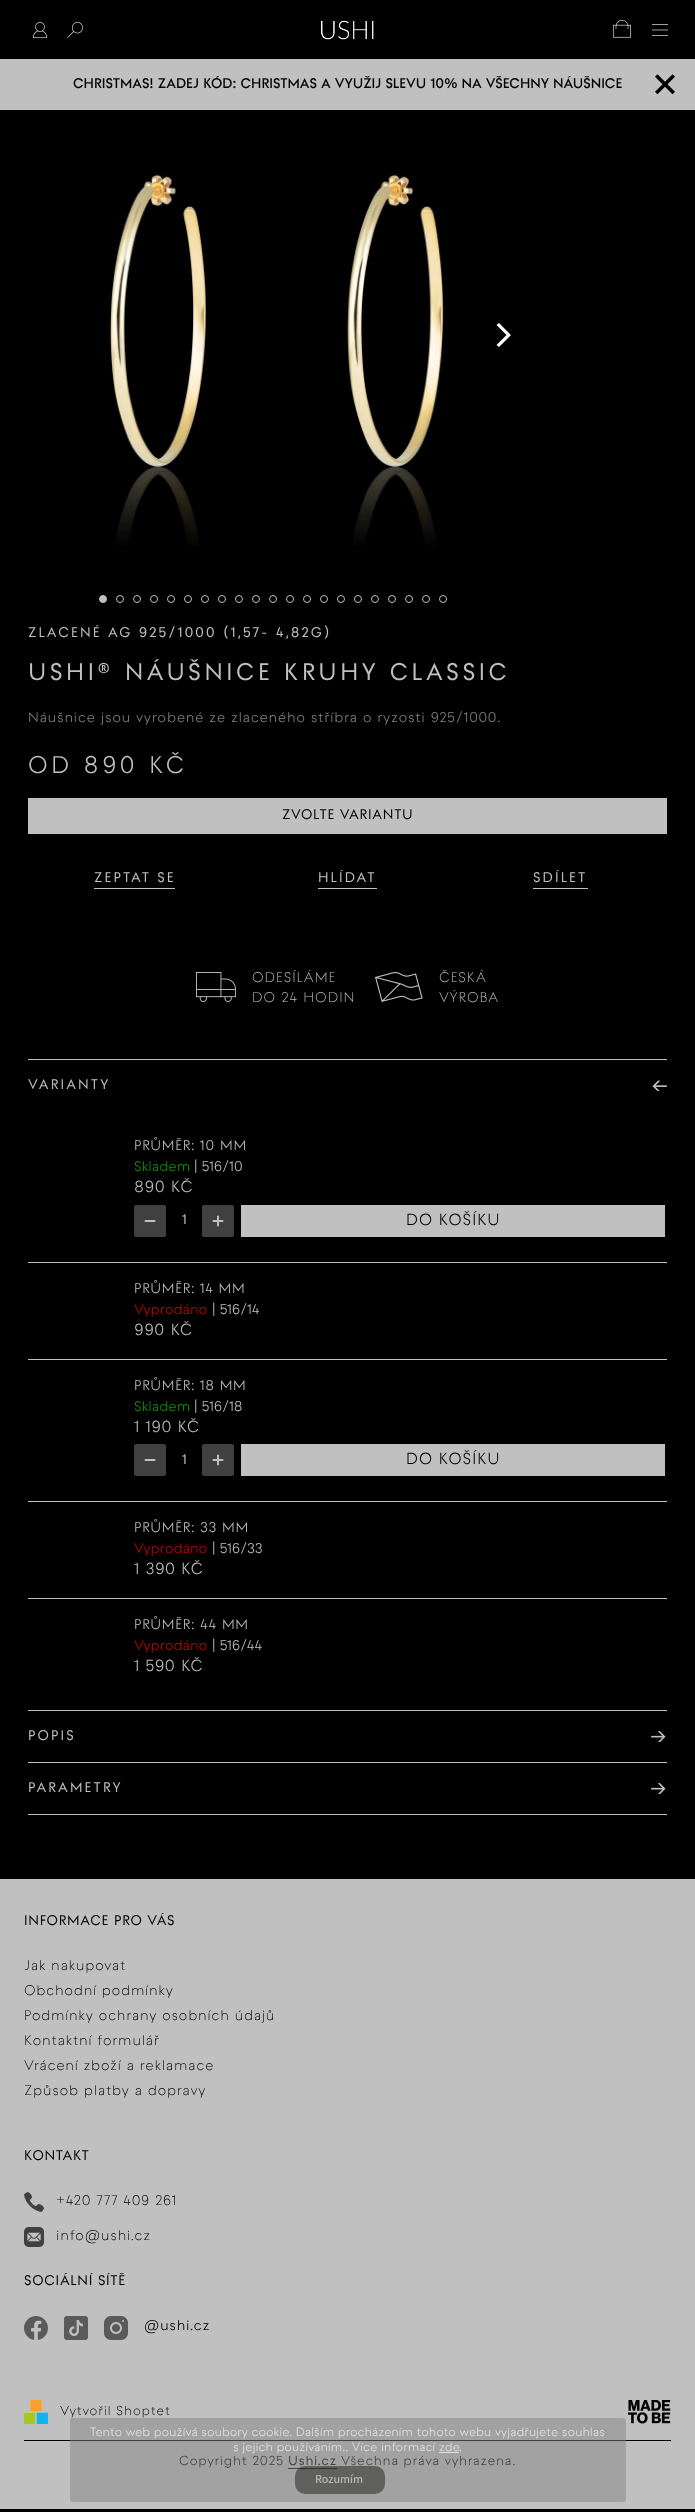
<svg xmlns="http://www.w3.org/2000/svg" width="695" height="2512">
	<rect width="100%" height="100%" fill="#000000" />
	<image x="321" y="20" width="53" height="20" href="assets/img1.png" />
	<image x="613" y="20" width="18" height="18" href="assets/img2.png" />
	<image x="32" y="22" width="16" height="16" href="assets/img3.png" />
	<image x="67" y="22" width="16" height="16" href="assets/img4.png" />
	<image x="652" y="24" width="16" height="12" href="assets/img5.png" />
	<rect x="0" y="59" width="695" height="51" fill="#C0C0C0" />
	<text x="73" y="88" font-family="'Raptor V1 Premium'" font-size="14" font-weight="600" fill="#000000">CHRISTMAS! ZADEJ KÓD: CHRISTMAS A VYUŽIJ SLEVU 10% NA VŠECHNY NÁUŠNICE</text>
	<image x="655" y="74" width="20" height="21" href="assets/img6.png" />
	<image x="108" y="174" width="338" height="372" href="assets/img7.png" />
	<path d="M499 347L496.5 345L506.5 335L496.5 325L499 323L511 335Z" fill="#FFFFFF" />
	<circle cx="103" cy="599" r="3.5" fill="#C0C0C0" stroke="#C0C0C0" />
	<circle cx="120" cy="599" r="3.5" fill="none" stroke="#C0C0C0" />
	<circle cx="137" cy="599" r="3.5" fill="none" stroke="#C0C0C0" />
	<circle cx="154" cy="599" r="3.5" fill="none" stroke="#C0C0C0" />
	<circle cx="171" cy="599" r="3.5" fill="none" stroke="#C0C0C0" />
	<circle cx="188" cy="599" r="3.5" fill="none" stroke="#C0C0C0" />
	<circle cx="205" cy="599" r="3.5" fill="none" stroke="#C0C0C0" />
	<circle cx="222" cy="599" r="3.5" fill="none" stroke="#C0C0C0" />
	<circle cx="239" cy="599" r="3.5" fill="none" stroke="#C0C0C0" />
	<circle cx="256" cy="599" r="3.5" fill="none" stroke="#C0C0C0" />
	<circle cx="273" cy="599" r="3.5" fill="none" stroke="#C0C0C0" />
	<circle cx="290" cy="599" r="3.5" fill="none" stroke="#C0C0C0" />
	<circle cx="307" cy="599" r="3.5" fill="none" stroke="#C0C0C0" />
	<circle cx="324" cy="599" r="3.5" fill="none" stroke="#C0C0C0" />
	<circle cx="341" cy="599" r="3.5" fill="none" stroke="#C0C0C0" />
	<circle cx="358" cy="599" r="3.5" fill="none" stroke="#C0C0C0" />
	<circle cx="375" cy="599" r="3.5" fill="none" stroke="#C0C0C0" />
	<circle cx="392" cy="599" r="3.5" fill="none" stroke="#C0C0C0" />
	<circle cx="409" cy="599" r="3.5" fill="none" stroke="#C0C0C0" />
	<circle cx="426" cy="599" r="3.5" fill="none" stroke="#C0C0C0" />
	<circle cx="443" cy="599" r="3.5" fill="none" stroke="#C0C0C0" />
	<text x="28" y="637" font-family="'Raptor V1 Premium'" font-size="14" font-weight="500" letter-spacing="2.1" fill="#C0C0C0">ZLACENÉ AG 925/1000 (1,57- 4,82G)</text>
	<text x="28" y="680" font-family="'Raptor V1 Premium'" font-size="24" font-weight="500" letter-spacing="3.6" fill="#C0C0C0">USHI® NÁUŠNICE KRUHY CLASSIC</text>
	<text x="28" y="722" font-family="'Raptor V1 Premium'" font-size="14" letter-spacing="0.7" fill="#808080">Náušnice jsou vyrobené ze zlaceného stříbra o ryzosti 925/1000.</text>
	<text x="28" y="773" font-family="'Raptor V1 Premium'" font-size="24" letter-spacing="3.6" fill="#C0C0C0">OD 890 KČ</text>
	<rect x="28" y="798" width="639" height="36" fill="#C0C0C0" />
	<text x="282" y="819" font-family="'Raptor V1 Premium'" font-size="14" font-weight="500" letter-spacing="0.7" fill="#000000">ZVOLTE VARIANTU</text>
	<text x="94" y="882" font-family="'Raptor V1 Premium'" font-size="14" font-weight="500" letter-spacing="2.1" fill="#C0C0C0">ZEPTAT SE</text>
	<rect x="94" y="888" width="81" height="1" fill="#C0C0C0" />
	<text x="318" y="882" font-family="'Raptor V1 Premium'" font-size="14" font-weight="500" letter-spacing="2.1" fill="#C0C0C0">HLÍDAT</text>
	<rect x="318" y="888" width="59" height="1" fill="#C0C0C0" />
	<text x="533" y="882" font-family="'Raptor V1 Premium'" font-size="14" font-weight="500" letter-spacing="2.1" fill="#C0C0C0">SDÍLET</text>
	<rect x="533" y="888" width="55" height="1" fill="#C0C0C0" />
	<image x="196" y="972" width="40" height="30" href="assets/img8.png" />
	<g font-family="'Raptor V1 Premium'" font-size="14" font-weight="300" letter-spacing="1" fill="#C0C0C0">
		<text x="252" y="982">ODESÍLÁME</text>
		<text x="252" y="1002">DO 24 HODIN</text>
	</g>
	<image x="375" y="972" width="48" height="30" href="assets/img9.png" />
	<g font-family="'Raptor V1 Premium'" font-size="14" font-weight="300" letter-spacing="1" fill="#C0C0C0">
		<text x="439" y="982">ČESKÁ</text>
		<text x="439" y="1002">VÝROBA</text>
	</g>
	<rect x="28" y="1059" width="639" height="1" fill="#C0C0C0" />
	<rect x="28" y="1710" width="639" height="1" fill="#C0C0C0" />
	<text x="28" y="1089" font-family="'Raptor V1 Premium'" font-size="14" font-weight="500" letter-spacing="2.1" fill="#C0C0C0">VARIANTY</text>
	<image x="652" y="1080" width="15" height="11" href="assets/img10.png" />
	<text x="134" y="1150" font-family="'Raptor V1 Premium'" font-size="14" letter-spacing="0.7" fill="#C0C0C0">PRŮMĚR: 10 MM</text>
	<text x="134" y="1171" font-family="'Raptor V1 Premium'" font-size="14" fill="#009901">Skladem</text>
	<text x="194" y="1171" font-family="'Raptor V1 Premium'" font-size="14" fill="#C0C0C0">| 516/10</text>
	<text x="134" y="1192" font-family="'Raptor V1 Premium'" font-size="16" letter-spacing="0.7" fill="#C0C0C0">890 KČ</text>
	<rect x="134" y="1205" width="32" height="32" rx="2" fill="#404040" />
	<path d="M145.5 1221H154.5" fill="none" stroke="#C0C0C0" stroke-width="2" stroke-linecap="round" stroke-linejoin="round" />
	<text x="182" y="1224" font-family="'Raptor V1 Premium'" font-size="14" font-weight="500" fill="#C0C0C0">1</text>
	<rect x="202" y="1205" width="32" height="32" rx="2" fill="#404040" />
	<path d="M218 1216.5V1225.5M213.5 1221H222.5" fill="none" stroke="#C0C0C0" stroke-width="2" stroke-linecap="round" stroke-linejoin="round" />
	<rect x="241" y="1205" width="424" height="32" fill="#C0C0C0" />
	<text x="406" y="1225" font-family="'Raptor V1 Premium'" font-size="16" letter-spacing="1" fill="#000000">DO KOŠÍKU</text>
	<rect x="28" y="1262" width="639" height="1" fill="#C0C0C0" />
	<text x="134" y="1293" font-family="'Raptor V1 Premium'" font-size="14" letter-spacing="0.7" fill="#C0C0C0">PRŮMĚR: 14 MM</text>
	<text x="134" y="1314" font-family="'Raptor V1 Premium'" font-size="14" fill="#CB0000">Vyprodáno</text>
	<text x="212" y="1314" font-family="'Raptor V1 Premium'" font-size="14" fill="#C0C0C0">| 516/14</text>
	<text x="134" y="1335" font-family="'Raptor V1 Premium'" font-size="16" letter-spacing="0.7" fill="#C0C0C0">990 KČ</text>
	<rect x="28" y="1359" width="639" height="1" fill="#C0C0C0" />
	<text x="134" y="1390" font-family="'Raptor V1 Premium'" font-size="14" letter-spacing="0.7" fill="#C0C0C0">PRŮMĚR: 18 MM</text>
	<text x="134" y="1411" font-family="'Raptor V1 Premium'" font-size="14" fill="#009901">Skladem</text>
	<text x="194" y="1411" font-family="'Raptor V1 Premium'" font-size="14" fill="#C0C0C0">| 516/18</text>
	<text x="134" y="1432" font-family="'Raptor V1 Premium'" font-size="16" letter-spacing="0.7" fill="#C0C0C0">1 190 KČ</text>
	<rect x="134" y="1444" width="32" height="32" rx="2" fill="#404040" />
	<path d="M145.5 1460H154.5" fill="none" stroke="#C0C0C0" stroke-width="2" stroke-linecap="round" stroke-linejoin="round" />
	<text x="182" y="1464" font-family="'Raptor V1 Premium'" font-size="14" font-weight="500" fill="#C0C0C0">1</text>
	<rect x="202" y="1444" width="32" height="32" rx="2" fill="#404040" />
	<path d="M218 1455.5V1464.5M213.5 1460H222.5" fill="none" stroke="#C0C0C0" stroke-width="2" stroke-linecap="round" stroke-linejoin="round" />
	<rect x="241" y="1444" width="424" height="32" fill="#C0C0C0" />
	<text x="406" y="1464" font-family="'Raptor V1 Premium'" font-size="16" letter-spacing="1" fill="#000000">DO KOŠÍKU</text>
	<rect x="28" y="1501" width="639" height="1" fill="#C0C0C0" />
	<text x="134" y="1532" font-family="'Raptor V1 Premium'" font-size="14" letter-spacing="0.7" fill="#C0C0C0">PRŮMĚR: 33 MM</text>
	<text x="134" y="1553" font-family="'Raptor V1 Premium'" font-size="14" fill="#CB0000">Vyprodáno</text>
	<text x="212" y="1553" font-family="'Raptor V1 Premium'" font-size="14" fill="#C0C0C0">| 516/33</text>
	<text x="134" y="1574" font-family="'Raptor V1 Premium'" font-size="16" letter-spacing="0.7" fill="#C0C0C0">1 390 KČ</text>
	<rect x="28" y="1598" width="639" height="1" fill="#C0C0C0" />
	<text x="134" y="1629" font-family="'Raptor V1 Premium'" font-size="14" letter-spacing="0.7" fill="#C0C0C0">PRŮMĚR: 44 MM</text>
	<text x="134" y="1650" font-family="'Raptor V1 Premium'" font-size="14" fill="#CB0000">Vyprodáno</text>
	<text x="212" y="1650" font-family="'Raptor V1 Premium'" font-size="14" fill="#C0C0C0">| 516/44</text>
	<text x="134" y="1671" font-family="'Raptor V1 Premium'" font-size="16" letter-spacing="0.7" fill="#C0C0C0">1 590 KČ</text>
	<rect x="28" y="1762" width="639" height="1" fill="#C0C0C0" />
	<text x="28" y="1740" font-family="'Raptor V1 Premium'" font-size="14" font-weight="500" letter-spacing="2.1" fill="#C0C0C0">POPIS</text>
	<image x="651" y="1731" width="15" height="11" href="assets/img11.png" />
	<rect x="28" y="1814" width="639" height="1" fill="#C0C0C0" />
	<text x="28" y="1792" font-family="'Raptor V1 Premium'" font-size="14" font-weight="500" letter-spacing="2.1" fill="#C0C0C0">PARAMETRY</text>
	<image x="651" y="1783" width="15" height="11" href="assets/img11.png" />
	<rect x="0" y="1879" width="695" height="630" fill="#C0C0C0" />
	<text x="24" y="1925" font-family="'Raptor V1 Premium'" font-size="14" font-weight="500" letter-spacing="0.7" fill="#000000">INFORMACE PRO VÁS</text>
	<g font-family="'Raptor V1 Premium'" font-size="14" font-weight="300" letter-spacing="0.7" fill="#000000">
		<text x="24" y="1970">Jak nakupovat</text>
		<text x="24" y="1995">Obchodní podmínky</text>
		<text x="24" y="2020">Podmínky ochrany osobních údajů</text>
		<text x="24" y="2045">Kontaktní formulář</text>
		<text x="24" y="2070">Vrácení zboží a reklamace</text>
		<text x="24" y="2095">Způsob platby a dopravy</text>
	</g>
	<text x="24" y="2160" font-family="'Raptor V1 Premium'" font-size="14" font-weight="500" letter-spacing="0.7" fill="#000000">KONTAKT</text>
	<image x="24" y="2192" width="20" height="20" href="assets/img12.png" />
	<text x="56" y="2205" font-family="'Raptor V1 Premium'" font-size="14" font-weight="300" letter-spacing="0.7" fill="#000000">+420 777 409 261</text>
	<image x="24" y="2227" width="20" height="20" href="assets/img13.png" />
	<text x="56" y="2240" font-family="'Raptor V1 Premium'" font-size="14" font-weight="300" letter-spacing="0.7" fill="#000000">info@ushi.cz</text>
	<text x="24" y="2285" font-family="'Raptor V1 Premium'" font-size="14" font-weight="500" letter-spacing="0.7" fill="#000000">SOCIÁLNÍ SÍTĚ</text>
	<image x="24" y="2316" width="24" height="24" href="assets/img14.png" />
	<image x="64" y="2316" width="24" height="24" href="assets/img15.png" />
	<image x="104" y="2316" width="24" height="24" href="assets/img16.png" />
	<text x="144" y="2330" font-family="'Raptor V1 Premium'" font-size="14" letter-spacing="0.7" fill="#000000">@ushi.cz</text>
	<rect x="24" y="2440" width="647" height="1" fill="#000000" />
	<image x="24" y="2400" width="24" height="24" href="assets/img17.png" />
	<text x="60" y="2415" font-family="'Raptor V1 Premium'" font-size="13" font-weight="300" letter-spacing="0.7" fill="#000000">Vytvořil Shoptet</text>
	<image x="628" y="2400" width="43" height="24" href="assets/img18.png" />
	<text x="179" y="2465" font-family="'Raptor V1 Premium'" font-size="13" letter-spacing="0.65" fill="#000000">Copyright 2025</text>
	<text x="288" y="2465" font-family="'Raptor V1 Premium'" font-size="13" font-weight="500" letter-spacing="0.65" fill="#000000">Ushi.cz</text>
	<rect x="288" y="2468" width="49" height="1" fill="#000000" />
	<text x="341" y="2465" font-family="'Raptor V1 Premium'" font-size="13" letter-spacing="0.65" fill="#000000">Všechna práva vyhrazena.</text>
	<rect x="70" y="2418" width="556" height="84" rx="3" fill="#848484" fill-opacity="0.5" />
	<g font-family="'Raptor V1 Premium'" font-size="12" fill="#E0E0E0">
		<text x="90" y="2436">Tento web používá soubory cookie. Dalším procházením tohoto webu vyjadřujete souhlas</text>
		<text x="233" y="2451">s jejich používáním.. Více informací zde</text>
		<text x="459" y="2451">.</text>
	</g>
	<rect x="439" y="2452" width="20" height="1" fill="#E0E0E0" />
	<rect x="295" y="2466" width="90" height="28" rx="10" fill="#1E1E1C" fill-opacity="0.5" />
	<text x="315" y="2483" font-family="'Source Sans 3'" font-size="12" font-weight="500" fill="#BABAB9">Rozumím</text>
</svg>
